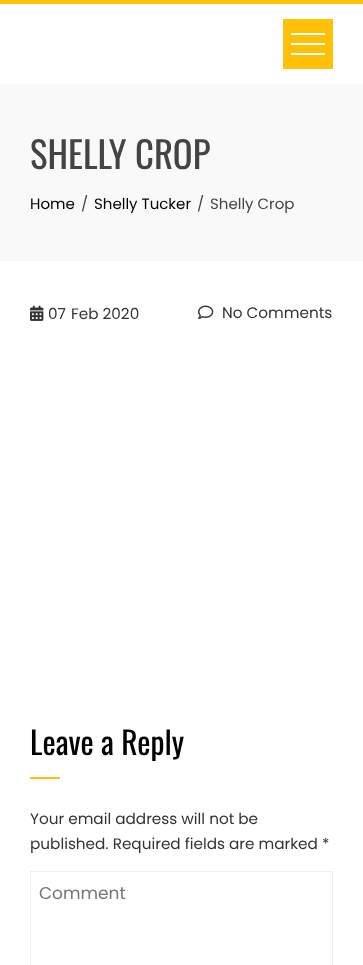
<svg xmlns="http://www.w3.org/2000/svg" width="363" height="965">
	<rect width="100%" height="100%" fill="#FFFFFF" />
	<rect x="0" y="0" width="363" height="4" fill="#FFC107" />
	<rect x="283" y="19" width="50" height="50" fill="#FFC107" />
	<rect x="291" y="33" width="34" height="2" fill="#FFFFFF" />
	<rect x="291" y="53" width="34" height="2" fill="#FFFFFF" />
	<rect x="291" y="43" width="34" height="2" fill="#FFFFFF" />
	<rect x="0" y="84" width="363" height="177" fill="#F9F9F9" />
	<text x="30" y="169" font-family="Oswald" font-size="36.75" fill="#444444">SHELLY CROP</text>
	<text x="30" y="209" font-family="Poppins" font-size="15" fill="#000000">Home</text>
	<text x="81" y="209" font-family="Poppins" font-size="15" fill="#444444">/</text>
	<text x="94" y="209" font-family="Poppins" font-size="15" fill="#000000">Shelly Tucker</text>
	<g font-family="Poppins" font-size="15" fill="#444444">
		<text x="197" y="209">/</text>
		<text x="210" y="209">Shelly Crop</text>
	</g>
	<image x="30" y="305" width="14" height="16" href="assets/img1.png" />
	<g font-family="Poppins" font-size="15.25" fill="#333333">
		<text x="48" y="319">07</text>
		<text x="71" y="319">Feb 2020</text>
	</g>
	<image x="198" y="305" width="16" height="14" href="assets/img2.png" />
	<text x="222" y="318" font-family="Poppins" font-size="15.25" fill="#333333">No Comments</text>
	<text x="30" y="755" font-family="Oswald" font-size="31.5" fill="#000000">Leave a Reply</text>
	<rect x="30" y="777" width="30" height="2" fill="#FFC107" />
	<g font-family="Poppins" font-size="15.25" fill="#333333">
		<text x="30" y="824">Your email address will not be</text>
		<text x="30" y="849">published. Required fields are marked *</text>
	</g>
	<rect x="30.5" y="871.5" width="302" height="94" fill="none" stroke="#EEEEEE" />
	<text x="39" y="899" font-family="Poppins" font-size="17" fill="#757575">Comment</text>
</svg>
